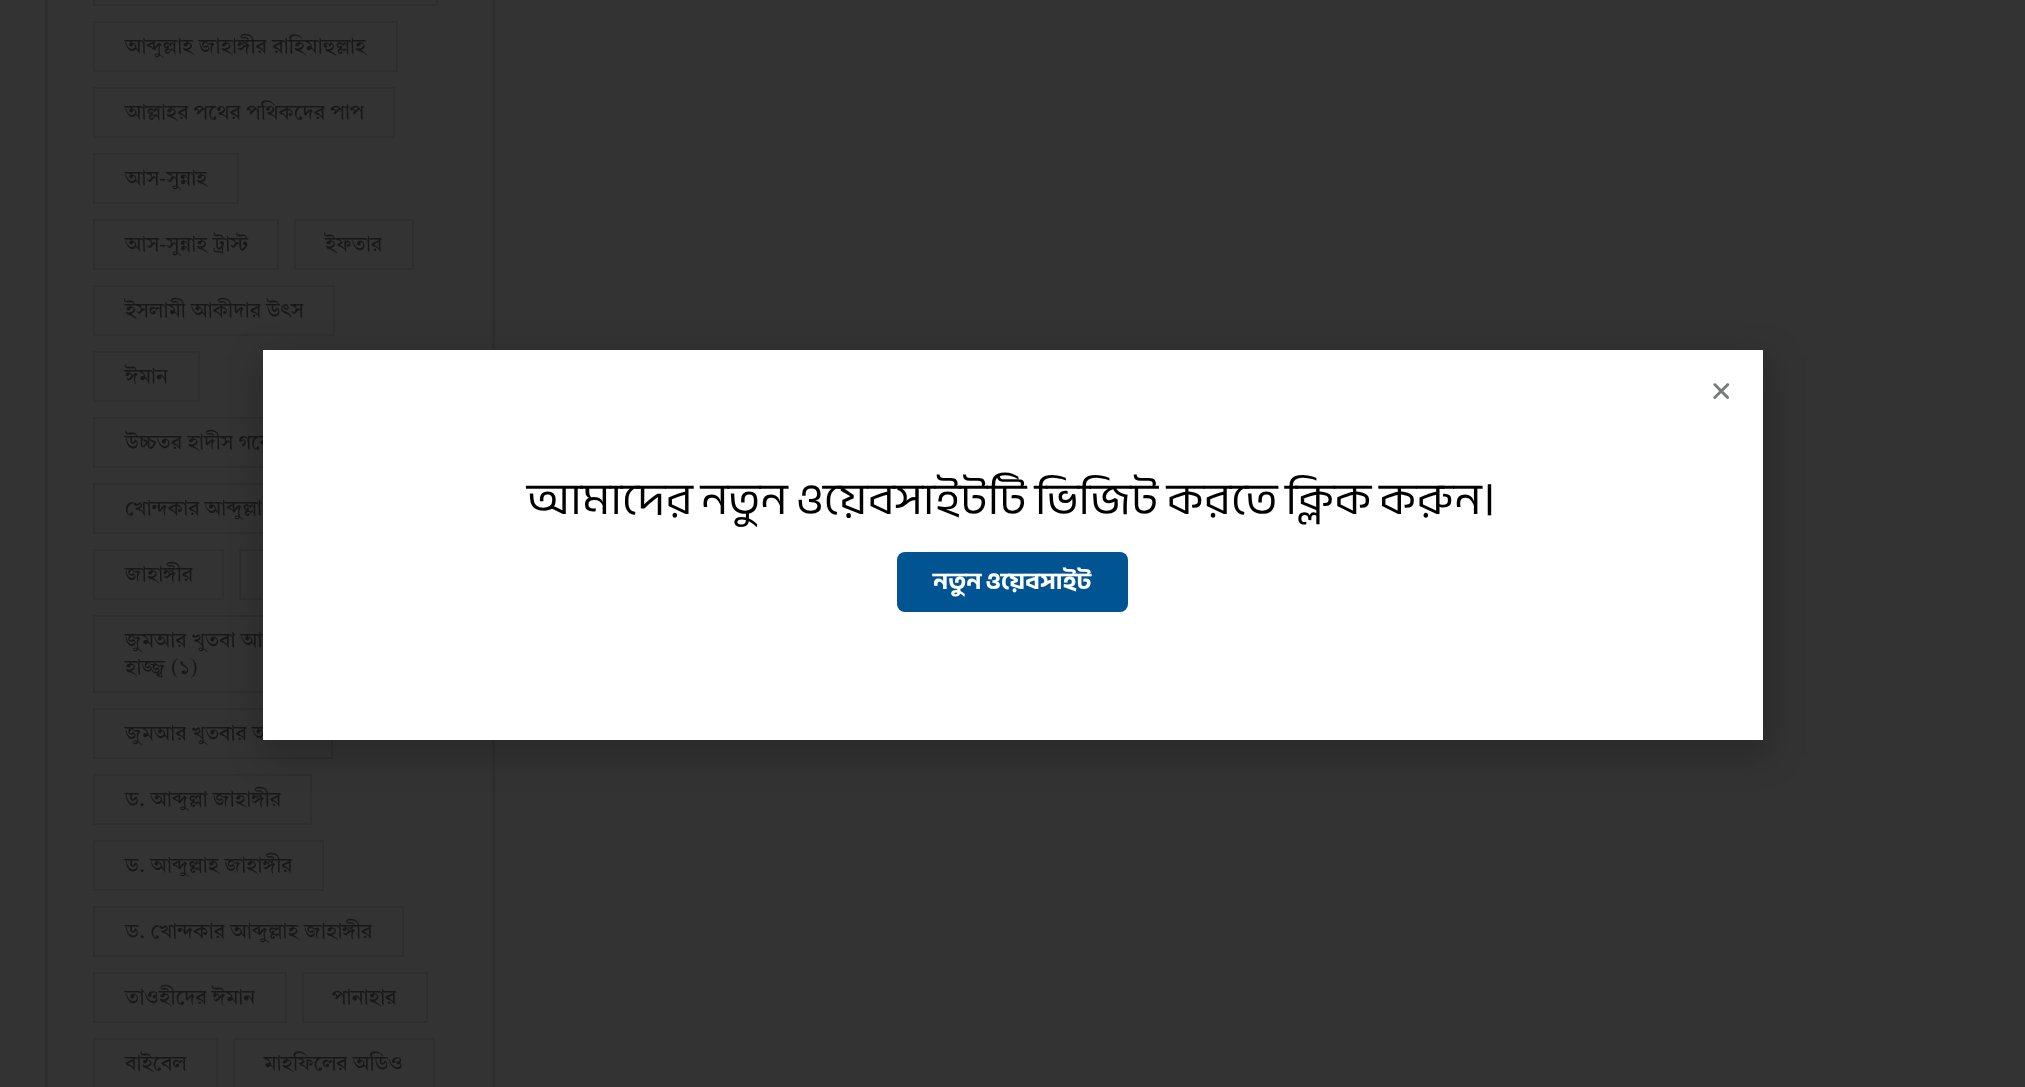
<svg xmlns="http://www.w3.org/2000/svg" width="2025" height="1087">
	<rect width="100%" height="100%" fill="#333333" />
	<rect x="46.5" y="-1.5" width="447" height="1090" fill="none" stroke="#2E2E2E" stroke-width="3" />
	<rect x="94" y="-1" width="343" height="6" fill="none" stroke="#2E2E2E" stroke-width="2" />
	<rect x="94" y="22" width="303" height="49" fill="none" stroke="#2E2E2E" stroke-width="2" />
	<text x="125" y="53" font-family="Tiro Bangla" font-size="21" fill="#181818">আব্দুল্লাহ জাহাঙ্গীর রাহিমাহুল্লাহ</text>
	<rect x="94" y="88" width="300" height="49" fill="none" stroke="#2E2E2E" stroke-width="2" />
	<text x="125" y="119" font-family="Tiro Bangla" font-size="21" fill="#181818">আল্লাহর পথের পথিকদের পাপ</text>
	<rect x="94" y="154" width="144" height="49" fill="none" stroke="#2E2E2E" stroke-width="2" />
	<text x="125" y="185" font-family="Tiro Bangla" font-size="21" fill="#181818">আস-সুন্নাহ</text>
	<rect x="94" y="220" width="184" height="49" fill="none" stroke="#2E2E2E" stroke-width="2" />
	<text x="125" y="251" font-family="Tiro Bangla" font-size="21" fill="#181818">আস-সুন্নাহ ট্রাস্ট</text>
	<rect x="295" y="220" width="118" height="49" fill="none" stroke="#2E2E2E" stroke-width="2" />
	<text x="325" y="251" font-family="Tiro Bangla" font-size="21" fill="#181818">ইফতার</text>
	<rect x="94" y="286" width="240" height="49" fill="none" stroke="#2E2E2E" stroke-width="2" />
	<text x="125" y="317" font-family="Tiro Bangla" font-size="21" fill="#181818">ইসলামী আকীদার উৎস</text>
	<rect x="94" y="352" width="105" height="49" fill="none" stroke="#2E2E2E" stroke-width="2" />
	<text x="125" y="383" font-family="Tiro Bangla" font-size="21" fill="#181818">ঈমান</text>
	<rect x="94" y="418" width="291" height="49" fill="none" stroke="#2E2E2E" stroke-width="2" />
	<text x="125" y="449" font-family="Tiro Bangla" font-size="21" fill="#181818">উচ্চতর হাদীস গবে</text>
	<rect x="94" y="484" width="283" height="49" fill="none" stroke="#2E2E2E" stroke-width="2" />
	<text x="125" y="515" font-family="Tiro Bangla" font-size="21" fill="#181818">খোন্দকার আব্দুল্লা</text>
	<rect x="94" y="550" width="129" height="49" fill="none" stroke="#2E2E2E" stroke-width="2" />
	<text x="125" y="581" font-family="Tiro Bangla" font-size="21" fill="#181818">জাহাঙ্গীর</text>
	<rect x="240" y="550" width="172" height="49" fill="none" stroke="#2E2E2E" stroke-width="2" />
	<rect x="94" y="616" width="343" height="76" fill="none" stroke="#2E2E2E" stroke-width="2" />
	<g font-family="Tiro Bangla" font-size="21" fill="#181818">
		<text x="125" y="647">জুমআর খুতবা আ</text>
		<text x="125" y="674">হাজ্জ্ব (১)</text>
	</g>
	<rect x="94" y="709" width="238" height="49" fill="none" stroke="#2E2E2E" stroke-width="2" />
	<text x="125" y="740" font-family="Tiro Bangla" font-size="21" fill="#181818">জুমআর খুতবার অ</text>
	<rect x="94" y="775" width="217" height="49" fill="none" stroke="#2E2E2E" stroke-width="2" />
	<text x="125" y="806" font-family="Tiro Bangla" font-size="21" fill="#181818">ড. আব্দুল্লা জাহাঙ্গীর</text>
	<rect x="94" y="841" width="229" height="49" fill="none" stroke="#2E2E2E" stroke-width="2" />
	<text x="125" y="872" font-family="Tiro Bangla" font-size="21" fill="#181818">ড. আব্দুল্লাহ জাহাঙ্গীর</text>
	<rect x="94" y="907" width="309" height="49" fill="none" stroke="#2E2E2E" stroke-width="2" />
	<text x="125" y="938" font-family="Tiro Bangla" font-size="21" fill="#181818">ড. খোন্দকার আব্দুল্লাহ জাহাঙ্গীর</text>
	<rect x="94" y="973" width="192" height="49" fill="none" stroke="#2E2E2E" stroke-width="2" />
	<text x="125" y="1004" font-family="Tiro Bangla" font-size="21" fill="#181818">তাওহীদের ঈমান</text>
	<rect x="303" y="973" width="124" height="49" fill="none" stroke="#2E2E2E" stroke-width="2" />
	<text x="332" y="1004" font-family="Tiro Bangla" font-size="21" fill="#181818">পানাহার</text>
	<rect x="94" y="1039" width="123" height="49" fill="none" stroke="#2E2E2E" stroke-width="2" />
	<text x="125" y="1070" font-family="Tiro Bangla" font-size="21" fill="#181818">বাইবেল</text>
	<rect x="234" y="1039" width="200" height="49" fill="none" stroke="#2E2E2E" stroke-width="2" />
	<text x="264" y="1070" font-family="Tiro Bangla" font-size="21" fill="#181818">মাহফিলের অডিও</text>
	<rect x="261" y="357" width="1509" height="399" fill="#000000" fill-opacity="0.2" filter="blur(17px)" />
	<rect x="263" y="350" width="1500" height="390" fill="#FFFFFF" />
	<image x="1713" y="383" width="17" height="16" href="assets/img1.png" />
	<text x="527" y="514" font-family="Anek Bangla" font-size="45" fill="#000000">আমাদের নতুন ওয়েবসাইটটি ভিজিট করতে ক্লিক করুন।</text>
	<rect x="897" y="552" width="231" height="60" rx="8" fill="#005492" />
	<text x="933" y="589" font-family="Anek Bangla" font-size="24" font-weight="700" fill="#FFFFFF">নতুন ওয়েবসাইট</text>
</svg>
